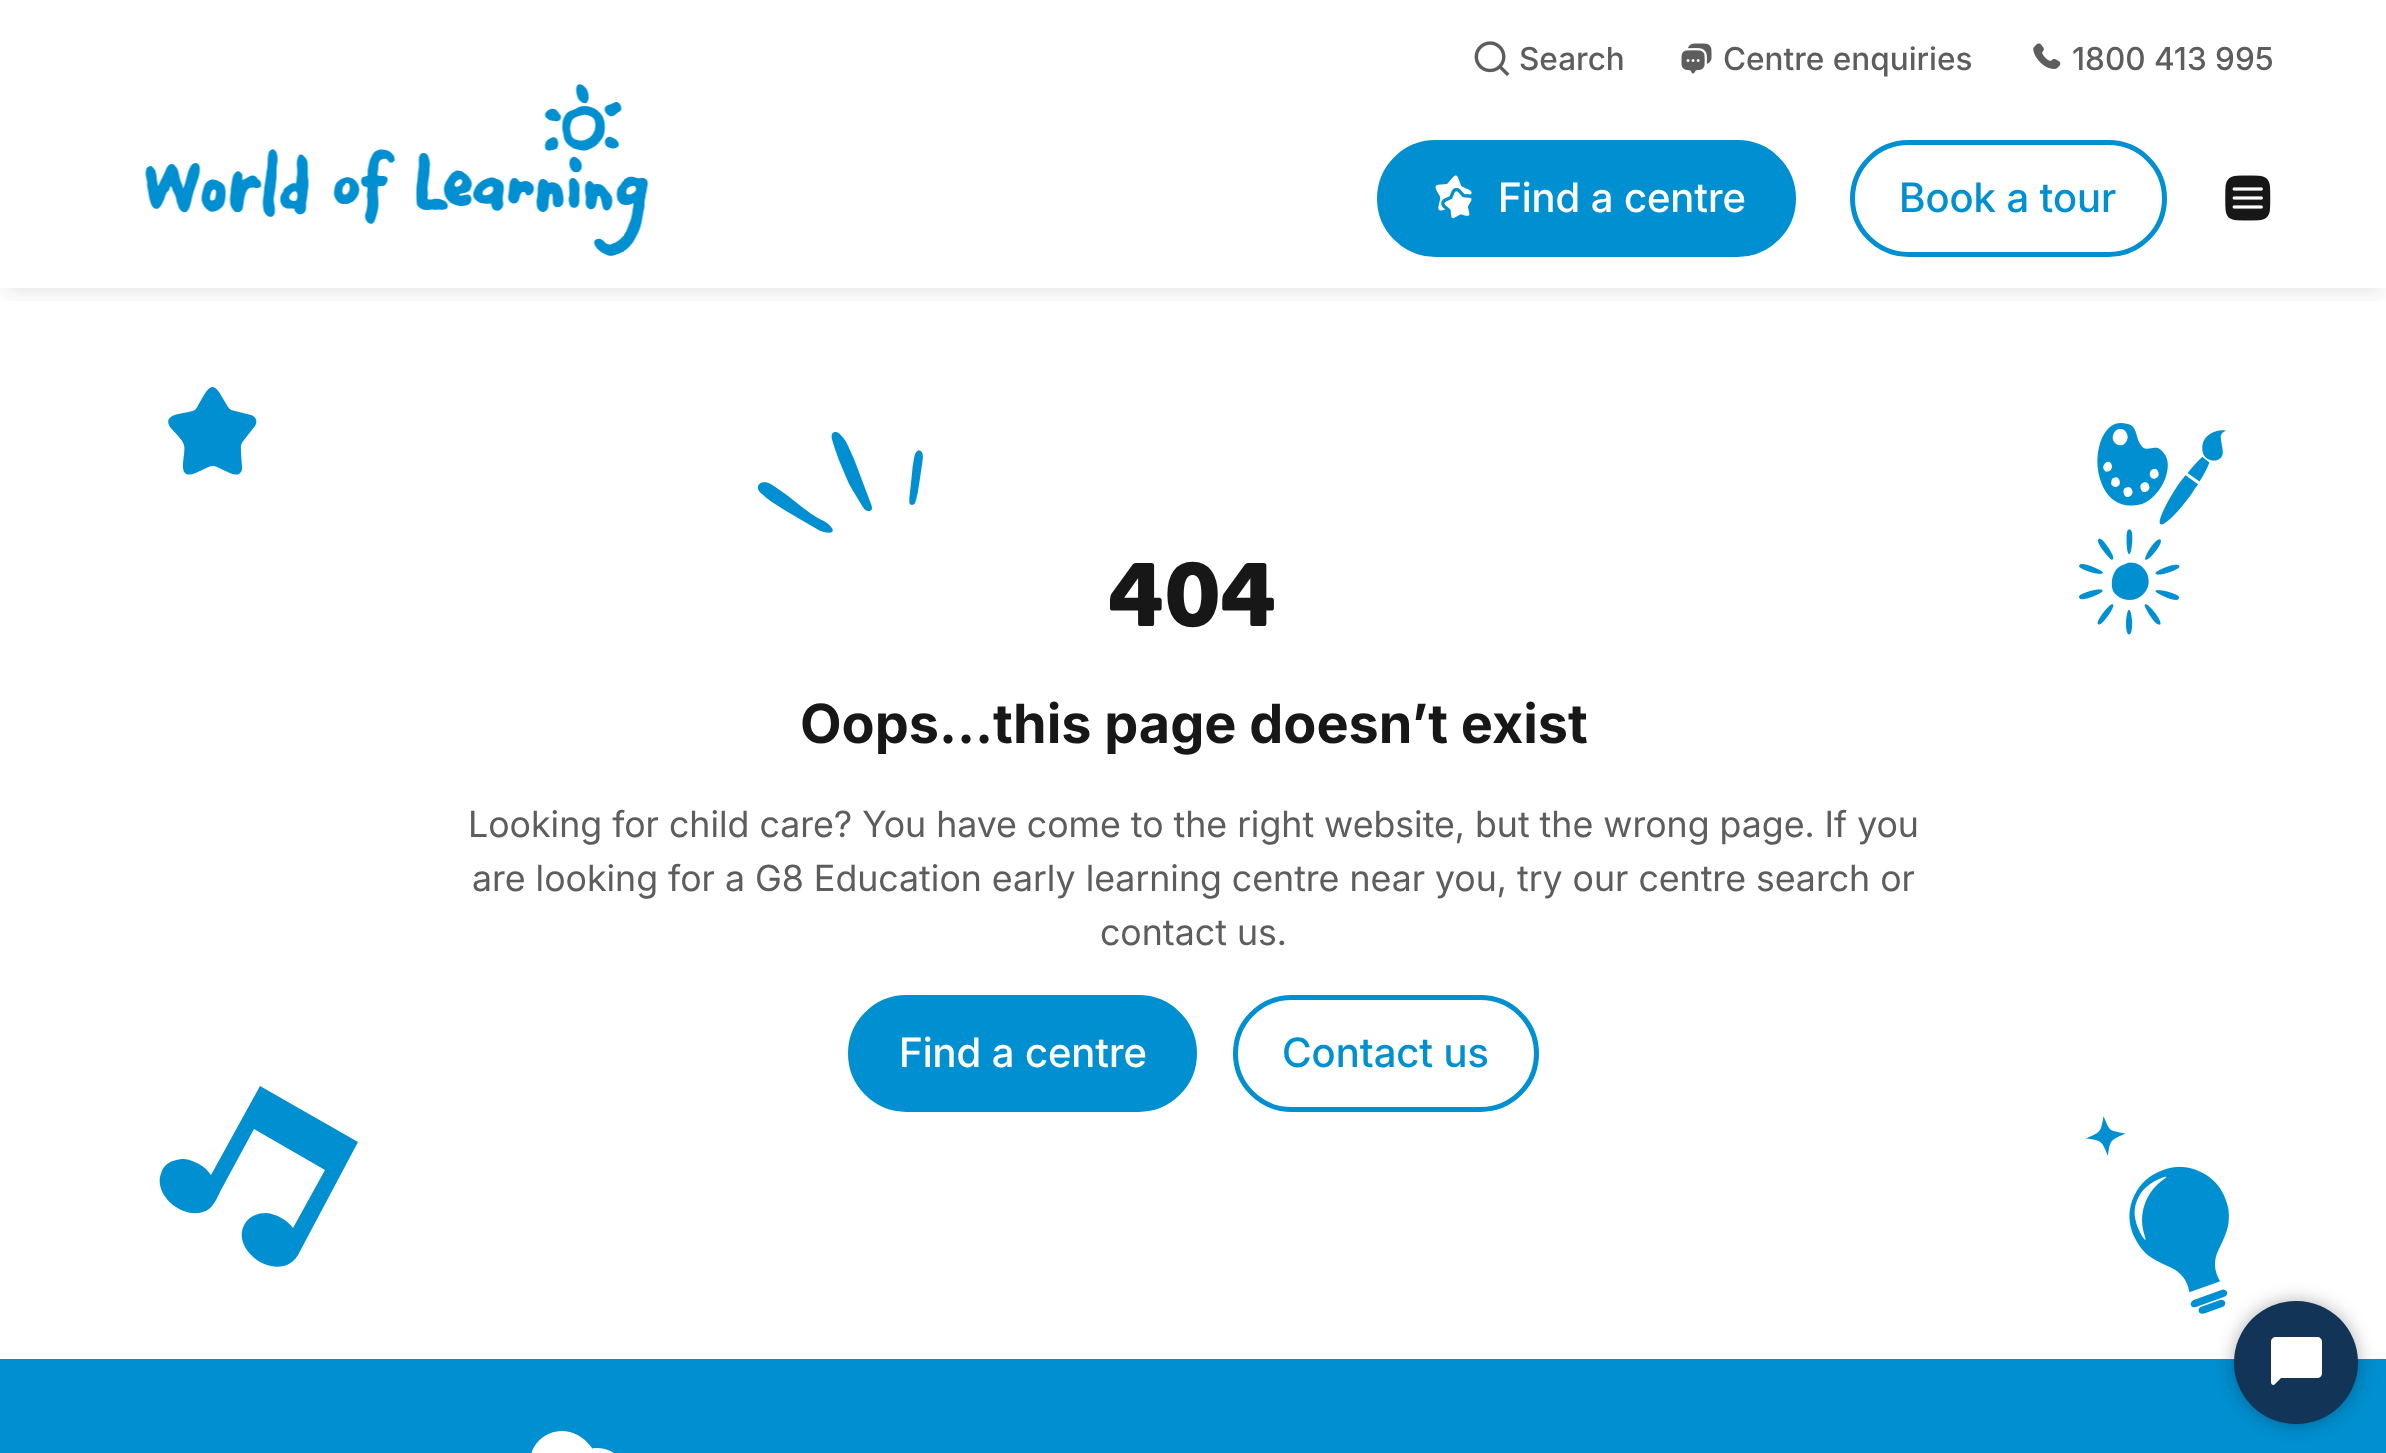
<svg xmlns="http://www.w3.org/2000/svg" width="2386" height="1453">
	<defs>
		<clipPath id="clip1"><rect x="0" y="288" width="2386" height="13" /></clipPath>
	</defs>
	<rect width="100%" height="100%" fill="#FFFFFF" />
	<g clip-path="url(#clip1)">
		<rect x="5" y="14" width="2378" height="279" fill="#101828" fill-opacity="0.1" filter="blur(9px)" />
	</g>
	<image x="1474" y="41" width="36" height="35" href="assets/img1.png" />
	<text x="1519" y="70" font-family="'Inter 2'" font-size="31.5" font-weight="500" fill="#5D5D5D">Search</text>
	<image x="1681" y="43" width="31" height="31" href="assets/img2.png" />
	<text x="1723" y="70" font-family="'Inter 2'" font-size="31.5" font-weight="500" fill="#5D5D5D">Centre enquiries</text>
	<image x="2033" y="43" width="28" height="26" href="assets/img3.png" />
	<text x="2072" y="70" font-family="'Inter 2'" font-size="31.5" font-weight="500" fill="#5D5D5D">1800 413 995</text>
	<image x="145" y="84" width="504" height="172" href="assets/img4.png" />
	<rect x="1379.5" y="142.5" width="414" height="112" rx="56" fill="#008FD0" stroke="#008FD0" stroke-width="5" />
	<image x="1435" y="175" width="37" height="44" href="assets/img5.png" />
	<text x="1498" y="212" font-family="Inter" font-size="40.5" font-weight="500" fill="#FFFFFF">Find a centre</text>
	<rect x="1852.5" y="142.5" width="312" height="112" rx="56" fill="none" stroke="#008FD0" stroke-width="5" />
	<text x="1899" y="212" font-family="Inter" font-size="40.5" font-weight="500" fill="#008FD0">Book a tour</text>
	<image x="2225" y="175" width="46" height="46" href="assets/img6.png" />
	<path d="M200 402C211 382 214 382 225 402C227 405 228 408 231 410L251 415C256 417 258 421 255 426L244 440C240 445 241 446 241 453L242 467C242 469 242 472 240 473C235 479 219 466 213 466C206 466 191 479 185 473C180 468 186 452 184 445C183 440 174 432 170 427C161 412 189 414 195 410C197 408 198 405 200 402Z" fill="#008FD0" />
	<image x="757" y="431" width="166" height="102" href="assets/img7.png" />
	<image x="2079" y="423" width="148" height="212" href="assets/img8.png" />
	<text x="1109" y="626" font-family="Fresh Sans" font-size="90" font-weight="700" letter-spacing="1" fill="#171717">404</text>
	<text x="800" y="743" font-family="Inter" font-size="54" font-weight="700" fill="#171717">Oops…this page doesn’t exist</text>
	<g font-family="Inter" font-size="36" fill="#5D5D5D">
		<text x="468" y="837">Looking for child care? You have come to the right website, but the wrong page. If you</text>
		<text x="472" y="891">are looking for a G8 Education early learning centre near you, try our centre search or</text>
		<text x="1100" y="945">contact us.</text>
	</g>
	<rect x="850.5" y="997.5" width="344" height="112" rx="56" fill="#008FD0" stroke="#008FD0" stroke-width="5" />
	<text x="899" y="1067" font-family="Inter" font-size="40.5" font-weight="500" fill="#FFFFFF">Find a centre</text>
	<rect x="1235.5" y="997.5" width="301" height="112" rx="56" fill="none" stroke="#008FD0" stroke-width="5" />
	<text x="1282" y="1067" font-family="Inter" font-size="40.5" font-weight="500" fill="#008FD0">Contact us</text>
	<path d="M298 1255L358 1142L260 1086L211 1175C205 1166 194 1160 184 1159C177 1159 170 1161 165 1166C162 1169 161 1173 160 1177C156 1200 189 1223 209 1209C215 1204 218 1196 221 1190L254 1129L325 1170L293 1228C287 1220 277 1214 266 1213C258 1213 250 1216 246 1222C230 1244 262 1274 287 1265C291 1263 295 1260 298 1255Z" fill="#008FD0" />
	<path d="M2125.5 1133.5C2108.5 1130 2110.5 1132.5 2103.5 1116C2101 1132.5 2100.5 1132 2086 1138.5C2102.5 1140.5 2102 1141.5 2108 1156C2110 1139.5 2111 1140 2125.5 1133.5Z" fill="#008FD0" />
	<image x="2129" y="1166" width="100" height="148" href="assets/img9.png" />
	<rect x="0" y="1359" width="2386" height="94" fill="#008FD0" />
	<image x="531" y="1431" width="83" height="22" href="assets/img10.png" />
	<rect x="2234" y="1301" width="124" height="123" rx="61.5" fill="#000000" fill-opacity="0.3" filter="blur(9px)" />
	<rect x="2234" y="1301" width="124" height="123" rx="61.5" fill="#123456" />
	<path d="M2317 1337H2276C2273 1337 2271 1339 2271 1342V1382C2271 1385 2274 1386 2275 1384L2281 1378H2317C2320 1378 2322 1376 2322 1373V1342C2322 1339 2320 1337 2317 1337Z" fill="#FFFFFF" />
</svg>
